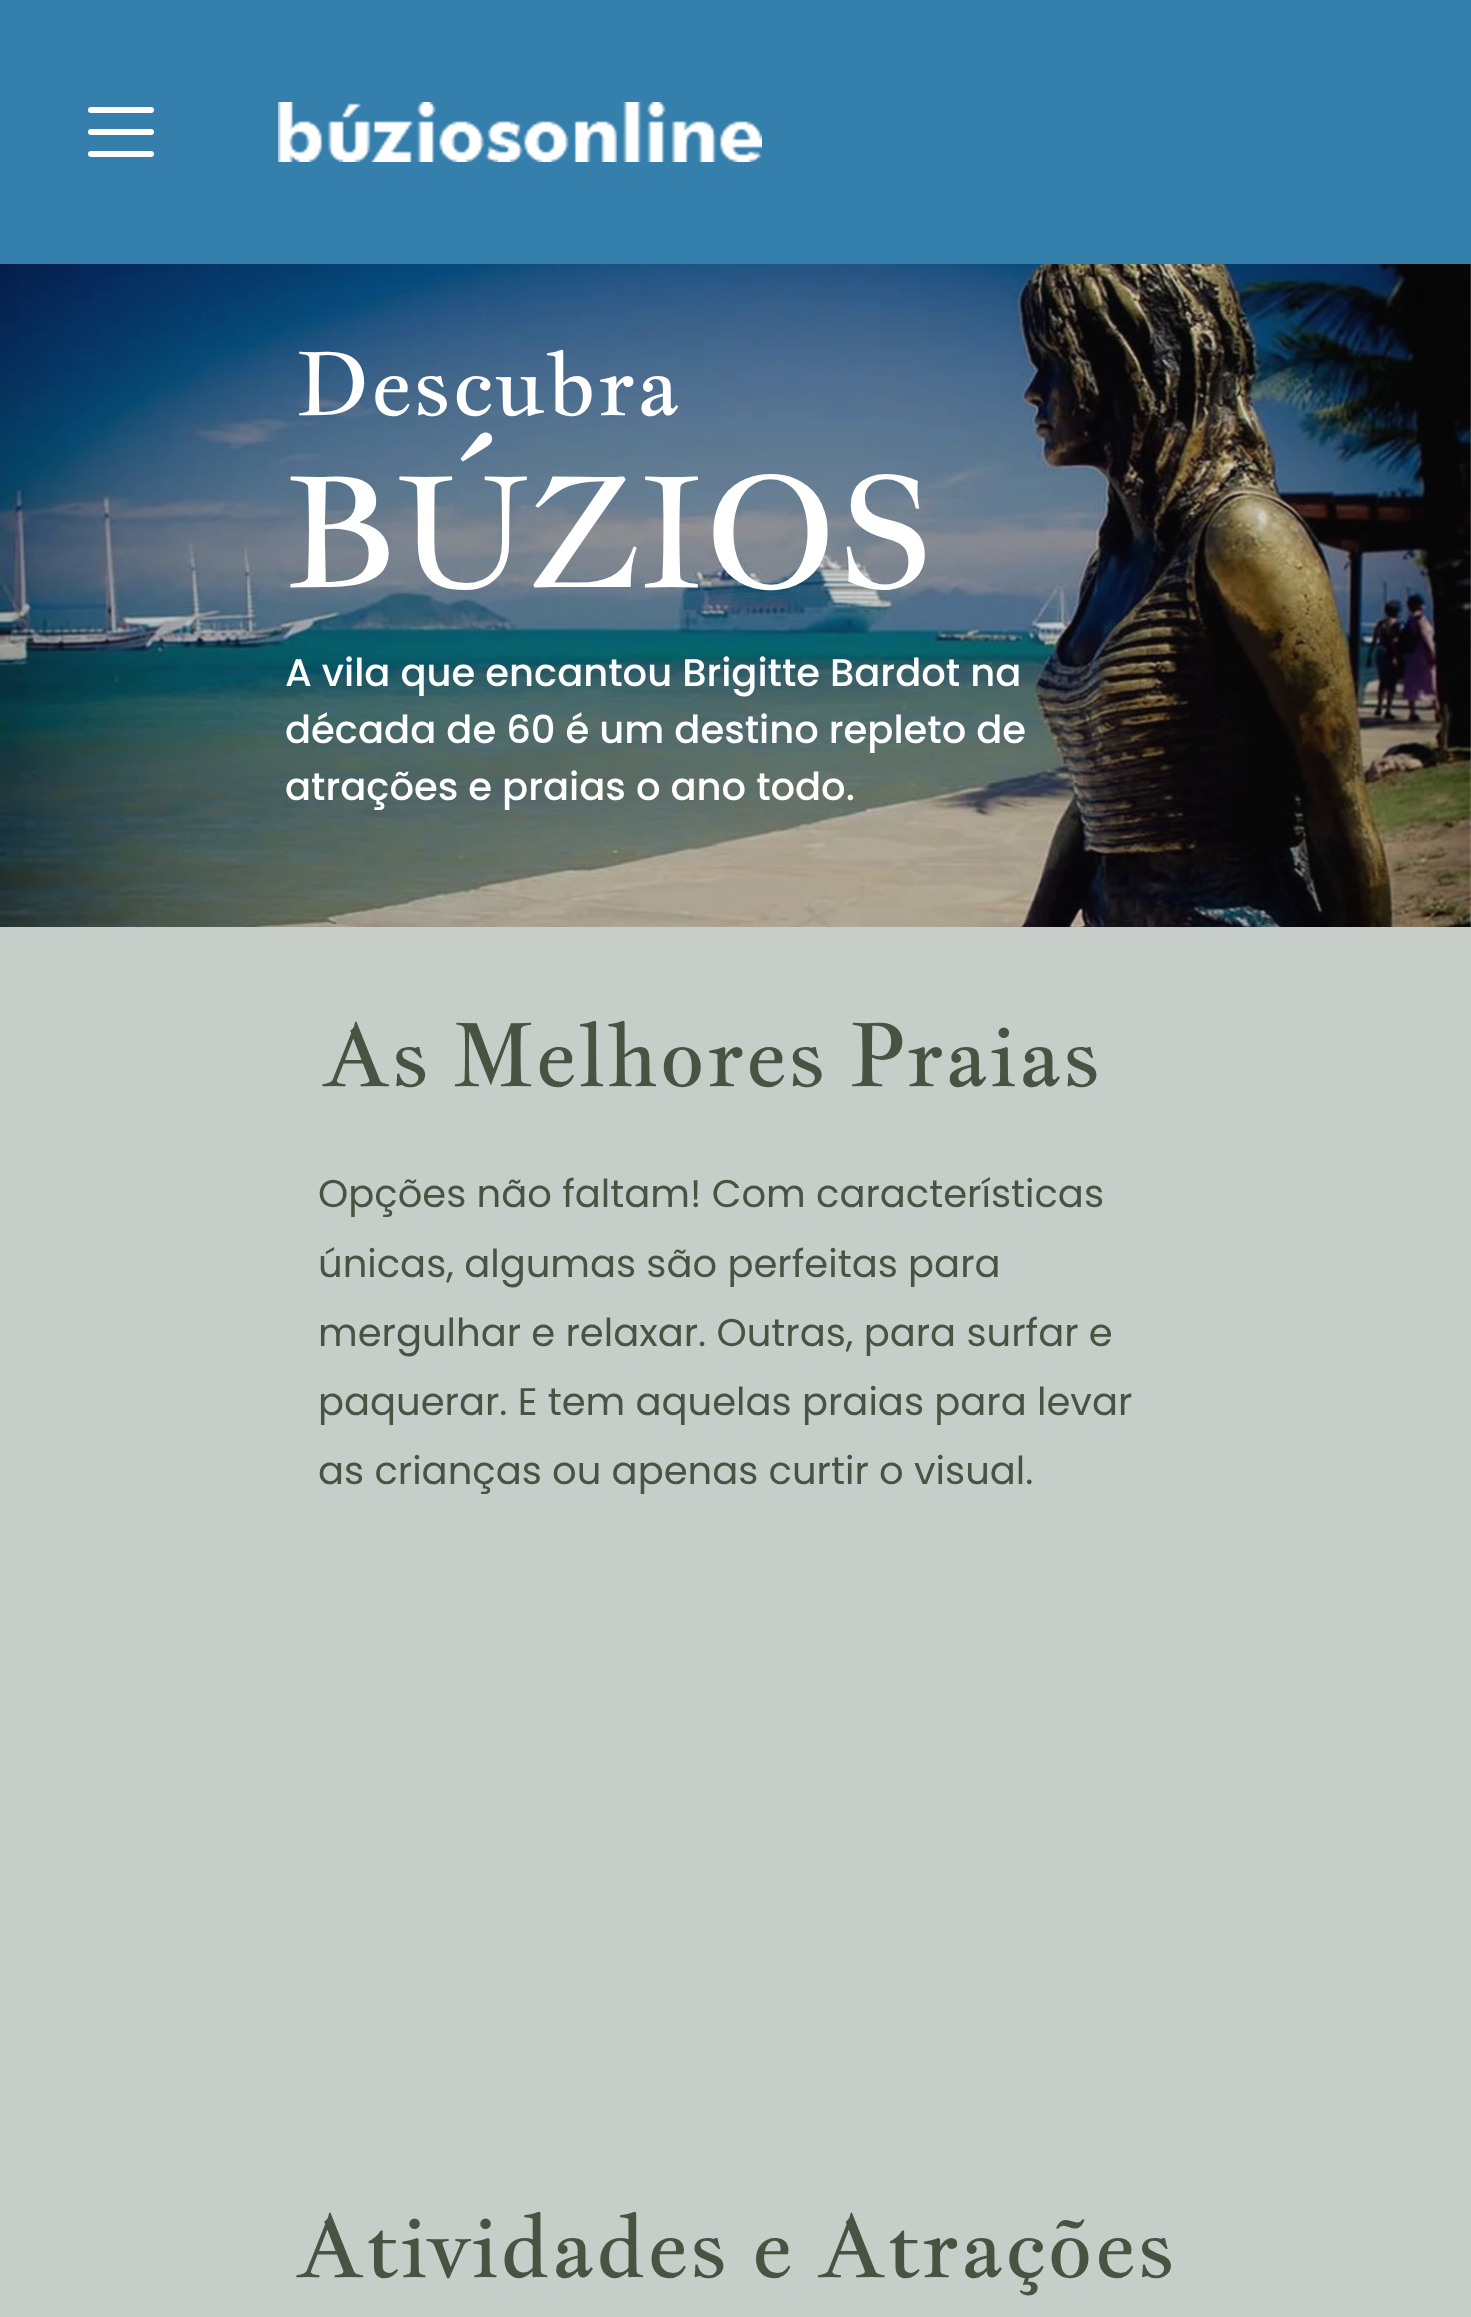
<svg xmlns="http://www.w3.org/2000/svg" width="1471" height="2317">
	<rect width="100%" height="100%" fill="#FFFFFF" />
	<rect x="0" y="0" width="1471" height="264" fill="#357FAD" />
	<rect x="88" y="107" width="66" height="6" rx="3" fill="#FFFFFF" />
	<rect x="88" y="129" width="66" height="6" rx="3" fill="#FFFFFF" />
	<rect x="88" y="151" width="66" height="6" rx="3" fill="#FFFFFF" />
	<image x="278" y="102" width="484" height="60" href="assets/img1.png" />
	<image x="0" y="264" width="1471" height="663" href="assets/img2.png" />
	<text x="296" y="415" font-family="Jacques Francois" font-size="88" fill="#FFFFFF">Descubra</text>
	<text x="285" y="587" font-family="Jacques Francois" font-size="154" fill="#FFFFFF">BÚZIOS</text>
	<g font-family="Poppins" font-size="38.5" font-weight="500" fill="#FFFFFF">
		<text x="285" y="686">A vila que encantou Brigitte Bardot na</text>
		<text x="285" y="743">década de 60 é um destino repleto de</text>
		<text x="285" y="800">atrações e praias o ano todo.</text>
	</g>
	<rect x="0" y="927" width="1471" height="1390" fill="#C7CEC9" />
	<text x="321" y="1086" font-family="Jacques Francois" font-size="88" fill="#485342">As Melhores Praias</text>
	<g font-family="Poppins" font-size="38.5" fill="#485342">
		<text x="318" y="1207">Opções não faltam! Com características</text>
		<text x="318" y="1277">únicas, algumas são perfeitas para</text>
		<text x="318" y="1346">mergulhar e relaxar. Outras, para surfar e</text>
		<text x="318" y="1415">paquerar. E tem aquelas praias para levar</text>
		<text x="318" y="1484">as crianças ou apenas curtir o visual.</text>
	</g>
	<text x="295" y="2277" font-family="Jacques Francois" font-size="88" fill="#485342">Atividades e Atrações</text>
</svg>
